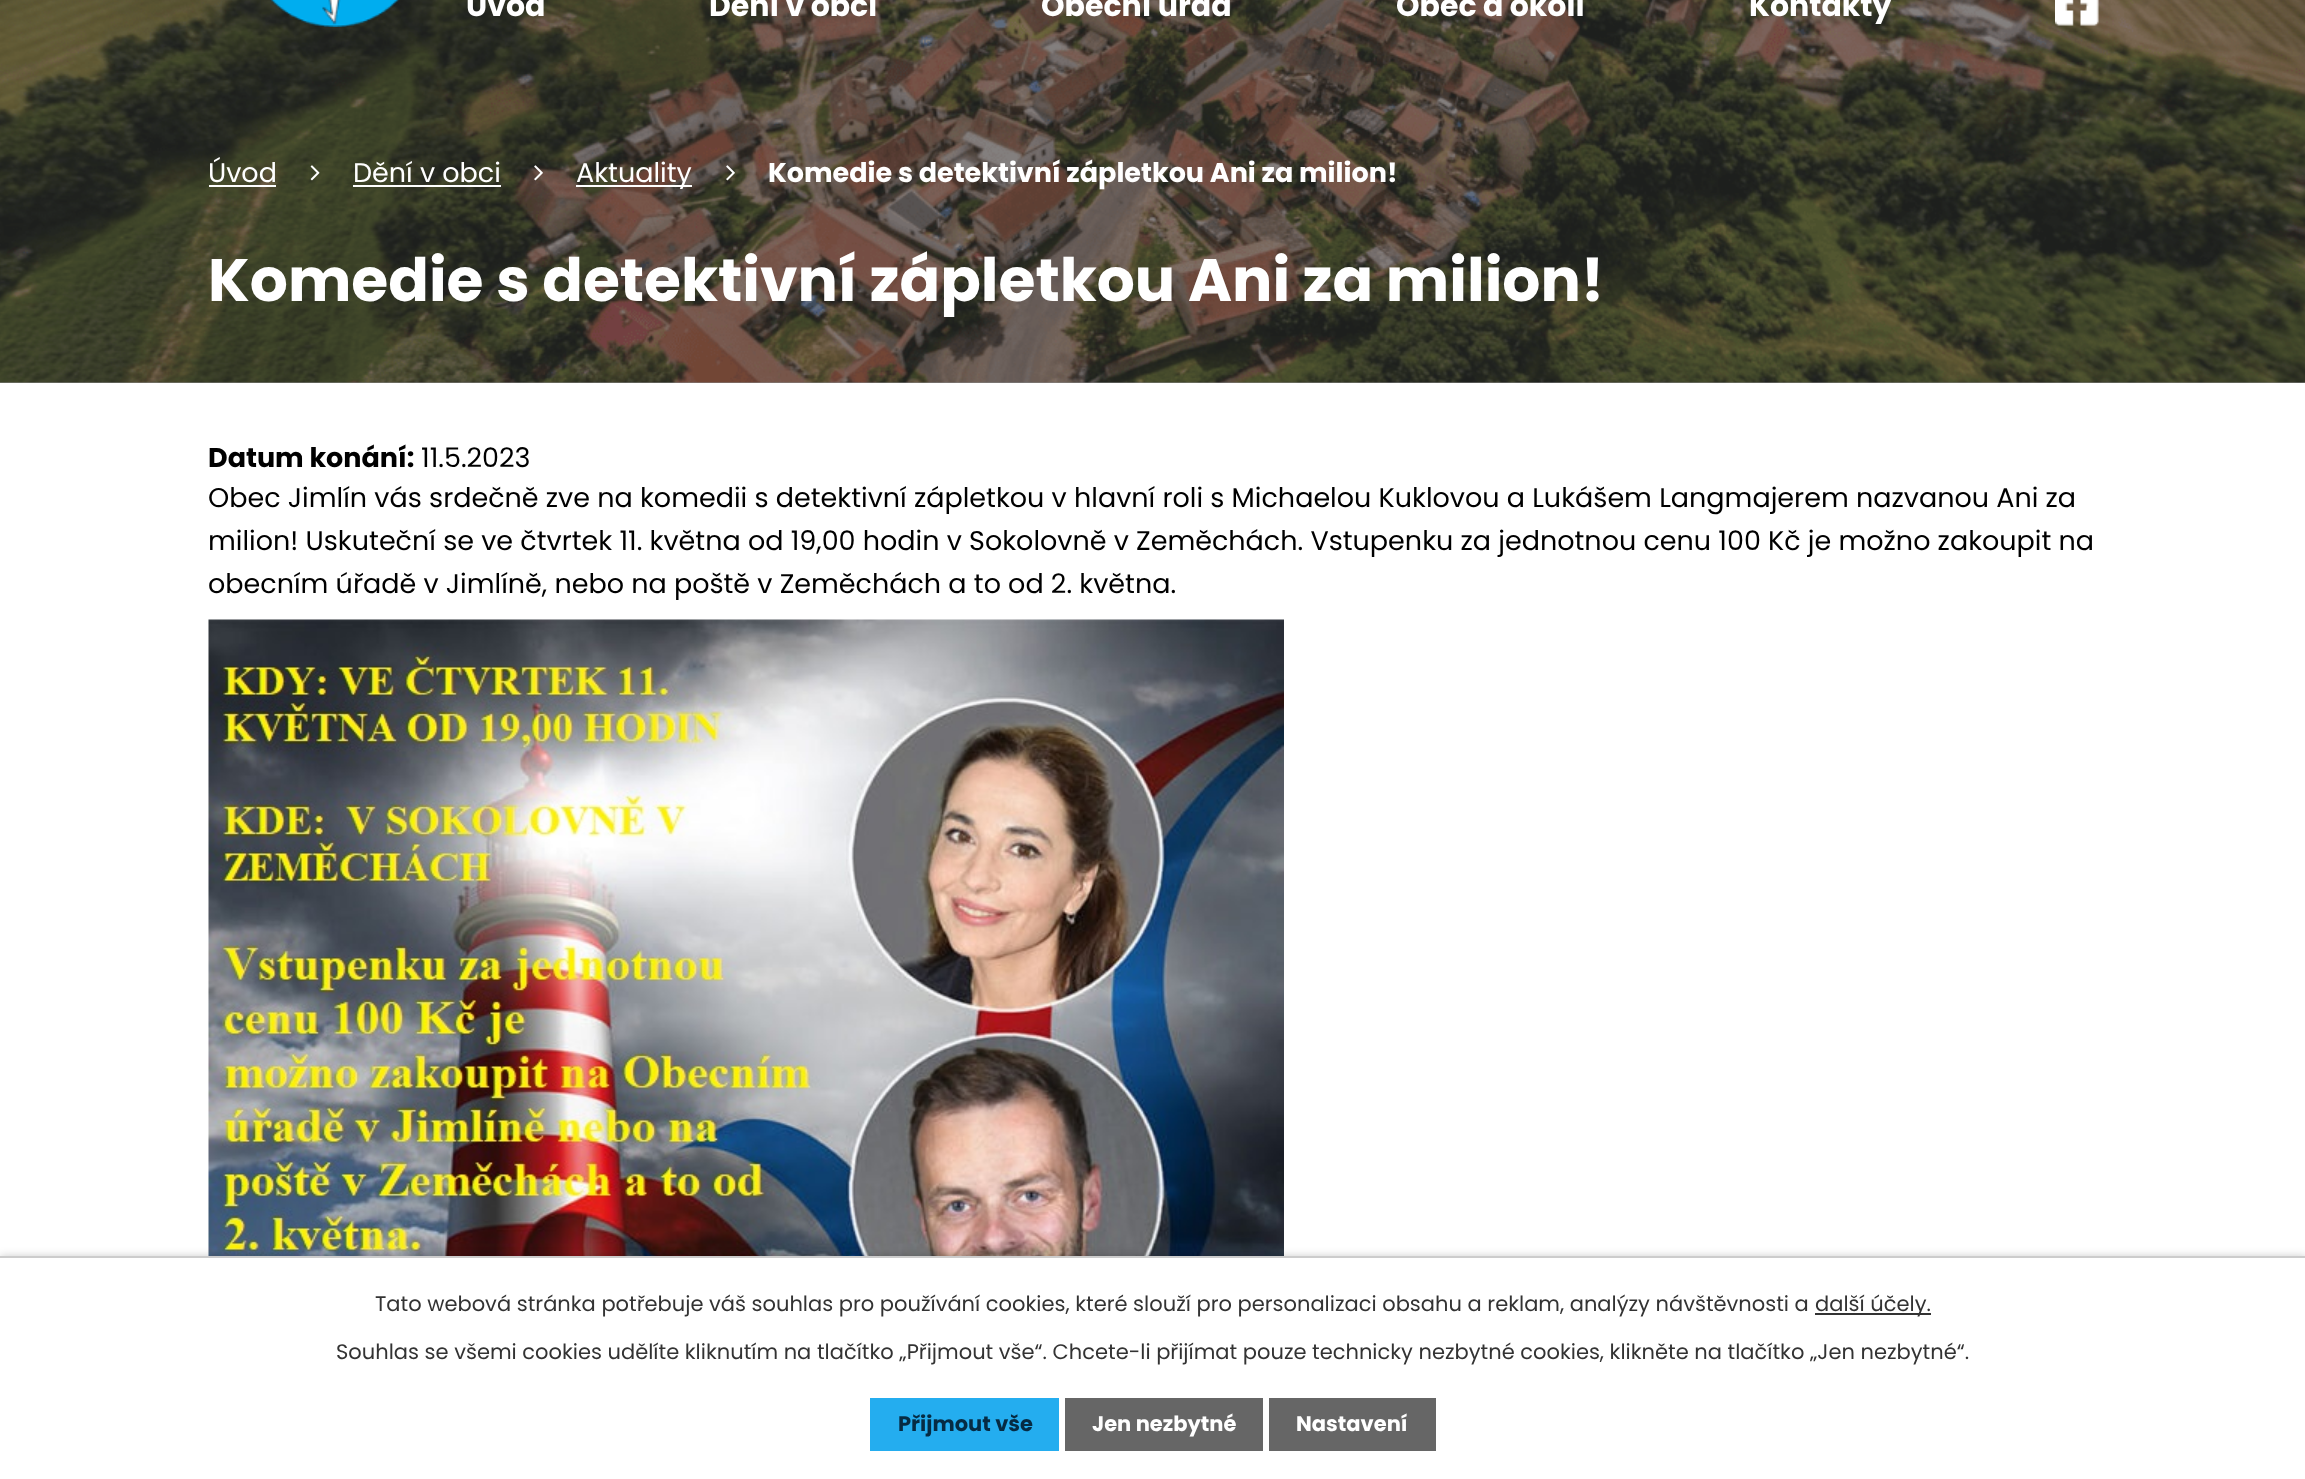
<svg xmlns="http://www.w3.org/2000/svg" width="2305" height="1479">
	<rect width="100%" height="100%" fill="#FFFFFF" />
	<rect x="0" y="382" width="2305" height="1" fill="#888888" />
	<image x="0" y="0" width="2305" height="383" href="assets/img3.png" />
	<g font-family="Poppins" font-size="30" font-weight="700" fill="#FFFFFF">
		<text x="466" y="16">Úvod</text>
		<text x="709" y="16">Dění v obci</text>
		<text x="1041" y="16">Obecní úřad</text>
		<text x="1396" y="16">Obec a okolí</text>
		<text x="1749" y="16">Kontakty</text>
	</g>
	<image x="270" y="0" width="130" height="27" href="assets/img1.png" />
	<image x="2055" y="0" width="44" height="26" href="assets/img2.png" />
	<text x="208" y="182" font-family="Poppins" font-size="27" fill="#FFFFFF">Úvod</text>
	<rect x="209" y="185" width="67" height="2" fill="#FFFFFF" />
	<image x="310" y="165" width="10" height="16" href="assets/img4.png" />
	<text x="353" y="182" font-family="Poppins" font-size="27" fill="#FFFFFF">Dění v obci</text>
	<rect x="353" y="185" width="148" height="2" fill="#FFFFFF" />
	<image x="534" y="165" width="9" height="16" href="assets/img5.png" />
	<rect x="576" y="185" width="116" height="2" fill="#FFFFFF" />
	<text x="576" y="182" font-family="Poppins" font-size="27" fill="#FFFFFF">Aktuality</text>
	<image x="726" y="165" width="9" height="16" href="assets/img6.png" />
	<text x="768" y="182" font-family="Poppins" font-size="27" font-weight="700" fill="#FFFFFF">Komedie s detektivní zápletkou Ani za milion!</text>
	<text x="208" y="301" font-family="Poppins" font-size="59.9" font-weight="700" fill="#FFFFFF">Komedie s detektivní zápletkou Ani za milion!</text>
	<text x="208" y="467" font-family="Poppins" font-size="27" font-weight="700" fill="#000000">Datum konání:</text>
	<g font-family="Poppins" font-size="27" fill="#000000">
		<text x="421" y="467">11.5.2023</text>
		<text x="208" y="507">Obec Jimlín vás srdečně zve na komedii s detektivní zápletkou v hlavní roli s Michaelou Kuklovou a Lukášem Langmajerem nazvanou Ani za</text>
		<text x="208" y="550">milion! Uskuteční se ve čtvrtek 11. května od 19,00 hodin v Sokolovně v Zeměchách. Vstupenku za jednotnou cenu 100 Kč je možno zakoupit na</text>
		<text x="208" y="593">obecním úřadě v Jimlíně, nebo na poště v Zeměchách a to od 2. května.</text>
	</g>
	<image x="208" y="619" width="1076" height="637" href="assets/img7.png" />
	<rect x="0" y="1256" width="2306" height="223" fill="#000000" fill-opacity="0.2" filter="blur(4px)" />
	<rect x="0" y="1258" width="2305" height="221" fill="#FFFFFF" />
	<rect x="0" y="1256" width="2305" height="2" fill="#CCCCCC" />
	<text x="375" y="1311" font-family="Poppins" font-size="21" fill="#333333">Tato webová stránka potřebuje váš souhlas pro používání cookies, které slouží pro personalizaci obsahu a reklam, analýzy návštěvnosti a</text>
	<rect x="1815" y="1313" width="116" height="2" fill="#333333" />
	<g font-family="Poppins" font-size="21" fill="#333333">
		<text x="1815" y="1311">další účely.</text>
		<text x="336" y="1359">Souhlas se všemi cookies udělíte kliknutím na tlačítko „Přijmout vše“. Chcete-li přijímat pouze technicky nezbytné cookies, klikněte na tlačítko „Jen nezbytné“.</text>
	</g>
	<rect x="870" y="1398" width="189" height="53" fill="#24ADEF" />
	<text x="898" y="1431" font-family="Poppins" font-size="21" font-weight="700" fill="#062B43">Přijmout vše</text>
	<rect x="1065" y="1398" width="198" height="53" fill="#666666" />
	<text x="1092" y="1431" font-family="Poppins" font-size="21" font-weight="700" fill="#FFFFFF">Jen nezbytné</text>
	<rect x="1269" y="1398" width="167" height="53" fill="#666666" />
	<text x="1296" y="1431" font-family="Poppins" font-size="21" font-weight="700" fill="#FFFFFF">Nastavení</text>
</svg>
